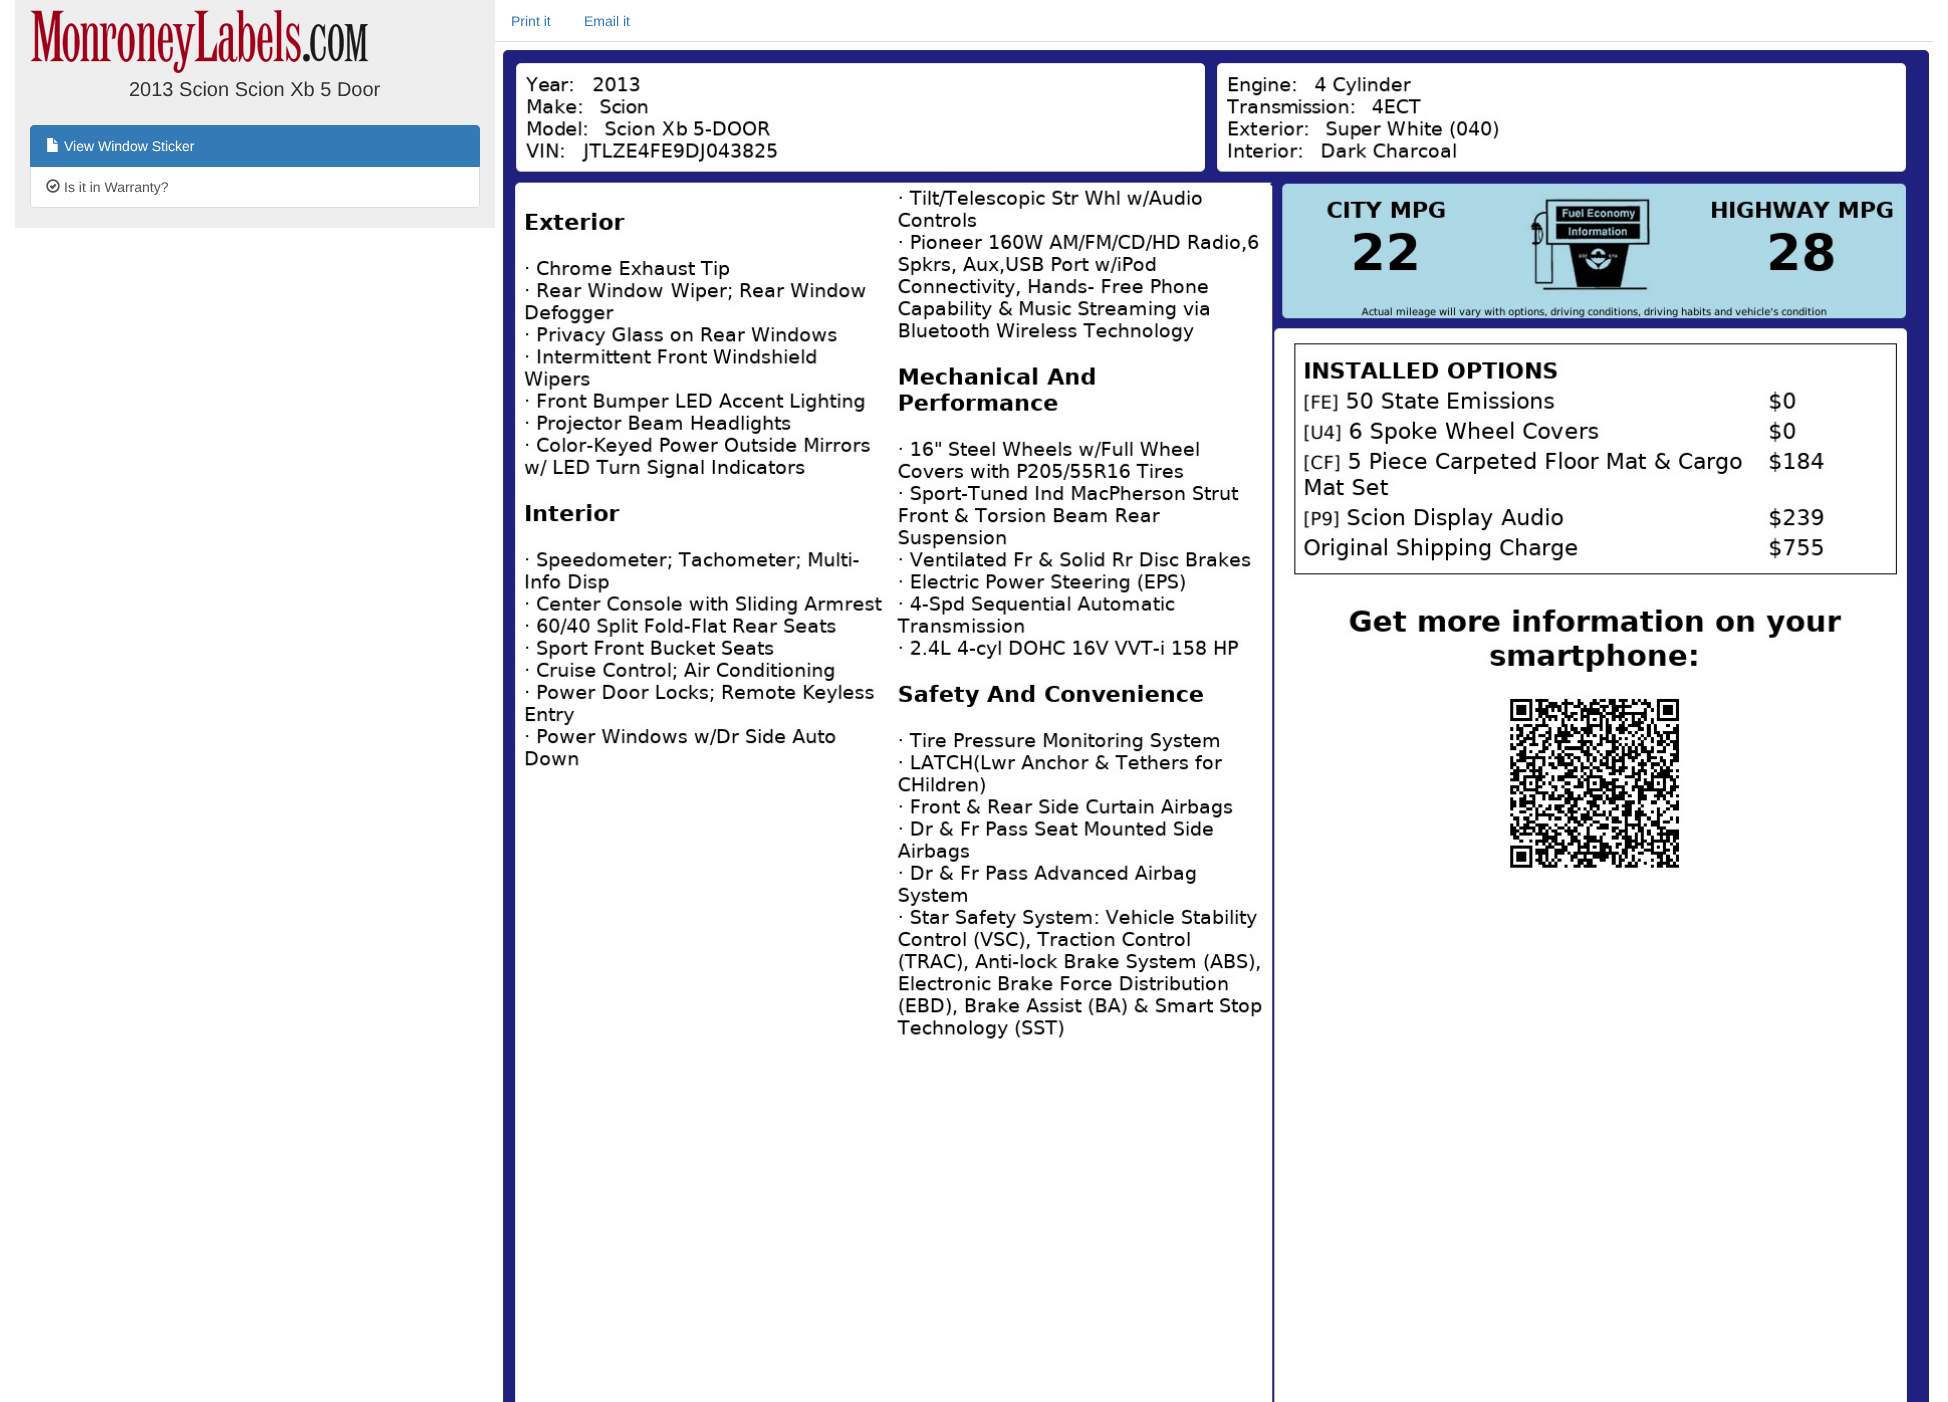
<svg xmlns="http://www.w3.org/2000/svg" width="1948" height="1402">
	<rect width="100%" height="100%" fill="#FFFFFF" />
	<rect x="495" y="41" width="1438" height="1" fill="#DDDDDD" />
	<g font-family="Liberation Sans" font-size="14" fill="#337AB7">
		<text x="511" y="26">Print it</text>
		<text x="584" y="26">Email it</text>
	</g>
	<image x="495" y="42" width="1438" height="1360" href="assets/img1.png" />
	<rect x="15" y="0" width="480" height="228" fill="#EEEEEE" />
	<image x="30" y="10" width="339" height="63" href="assets/img2.png" />
	<text x="129" y="96" font-family="Liberation Sans" font-size="20" fill="#333333">2013 Scion Scion Xb 5 Door</text>
	<path d="M30.5 166.5H479.5V204C479.5 206 478 207.5 476 207.5H34C32 207.5 30.5 206 30.5 204Z" fill="#FFFFFF" stroke="#DDDDDD" />
	<path d="M34 125.5H476C478 125.5 479.5 127 479.5 129V166.5H30.5V129C30.5 127 32 125.5 34 125.5Z" fill="#337AB7" stroke="#337AB7" />
	<image x="47" y="138" width="11" height="14" href="assets/img3.png" />
	<text x="64" y="151" font-family="Liberation Sans" font-size="14" fill="#FFFFFF">View Window Sticker</text>
	<image x="46" y="179" width="14" height="14" href="assets/img4.png" />
	<text x="64" y="192" font-family="Liberation Sans" font-size="14" fill="#555555">Is it in Warranty?</text>
</svg>
